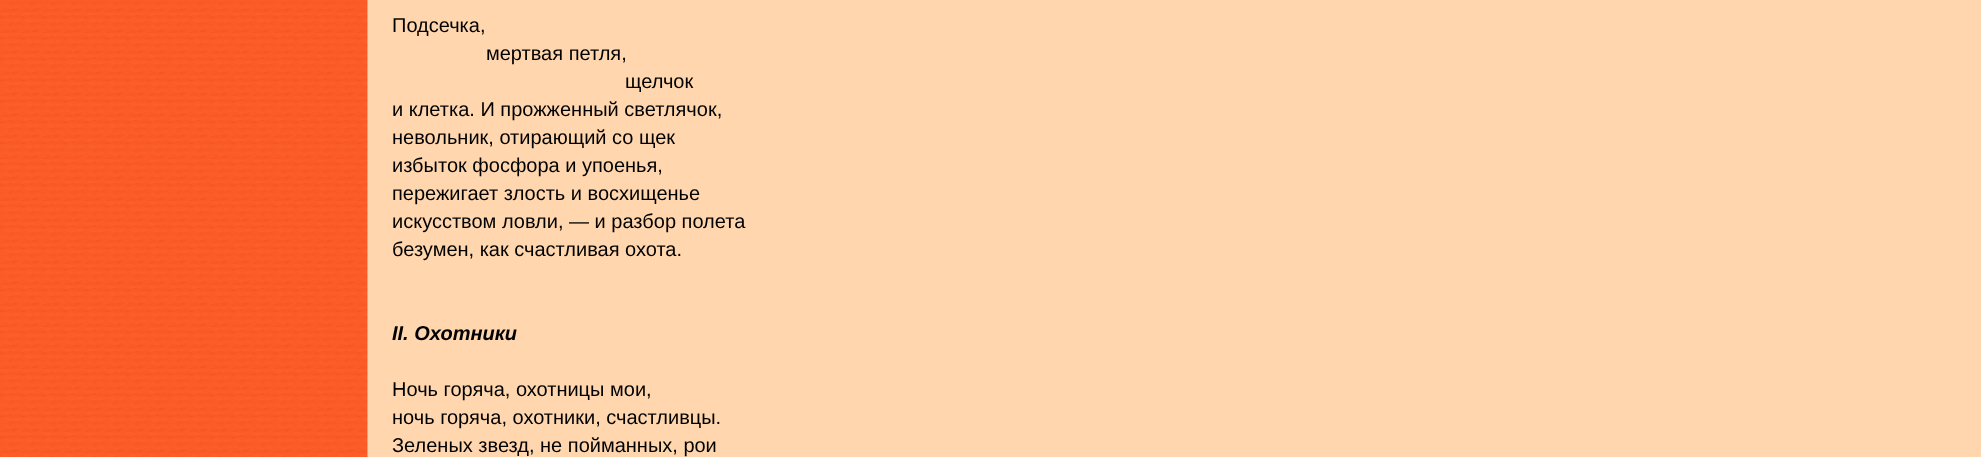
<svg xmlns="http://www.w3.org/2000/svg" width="1981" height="457">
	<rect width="100%" height="100%" fill="#FC5B29" />
	<image x="0" y="2" width="368" height="455" href="assets/img1.png" />
	<image x="367" y="0" width="1" height="457" href="assets/img2.png" />
	<image x="367" y="0" width="1" height="457" href="assets/img3.png" />
	<rect x="368" y="0" width="1613" height="457" fill="#FFD6AD" />
	<g font-family="Liberation Sans" font-size="20" fill="#000000">
		<text x="392" y="32">Подсечка,</text>
		<text x="486" y="60">мертвая петля,</text>
		<text x="625" y="88">щелчок</text>
		<text x="392" y="116">и клетка. И прожженный светлячок,</text>
		<text x="392" y="144">невольник, отирающий со щек</text>
		<text x="392" y="172">избыток фосфора и упоенья,</text>
		<text x="392" y="200">пережигает злость и восхищенье</text>
		<text x="392" y="228">искусством ловли, — и разбор полета</text>
		<text x="392" y="256">безумен, как счастливая охота.</text>
	</g>
	<text x="392" y="340" font-family="Liberation Sans" font-size="20" font-weight="700" font-style="italic" fill="#000000">II. Охотники</text>
	<g font-family="Liberation Sans" font-size="20" fill="#000000">
		<text x="392" y="396">Ночь горяча, охотницы мои,</text>
		<text x="392" y="424">ночь горяча, охотники, счастливцы.</text>
		<text x="392" y="452">Зеленых звезд, не пойманных, рои</text>
	</g>
</svg>
